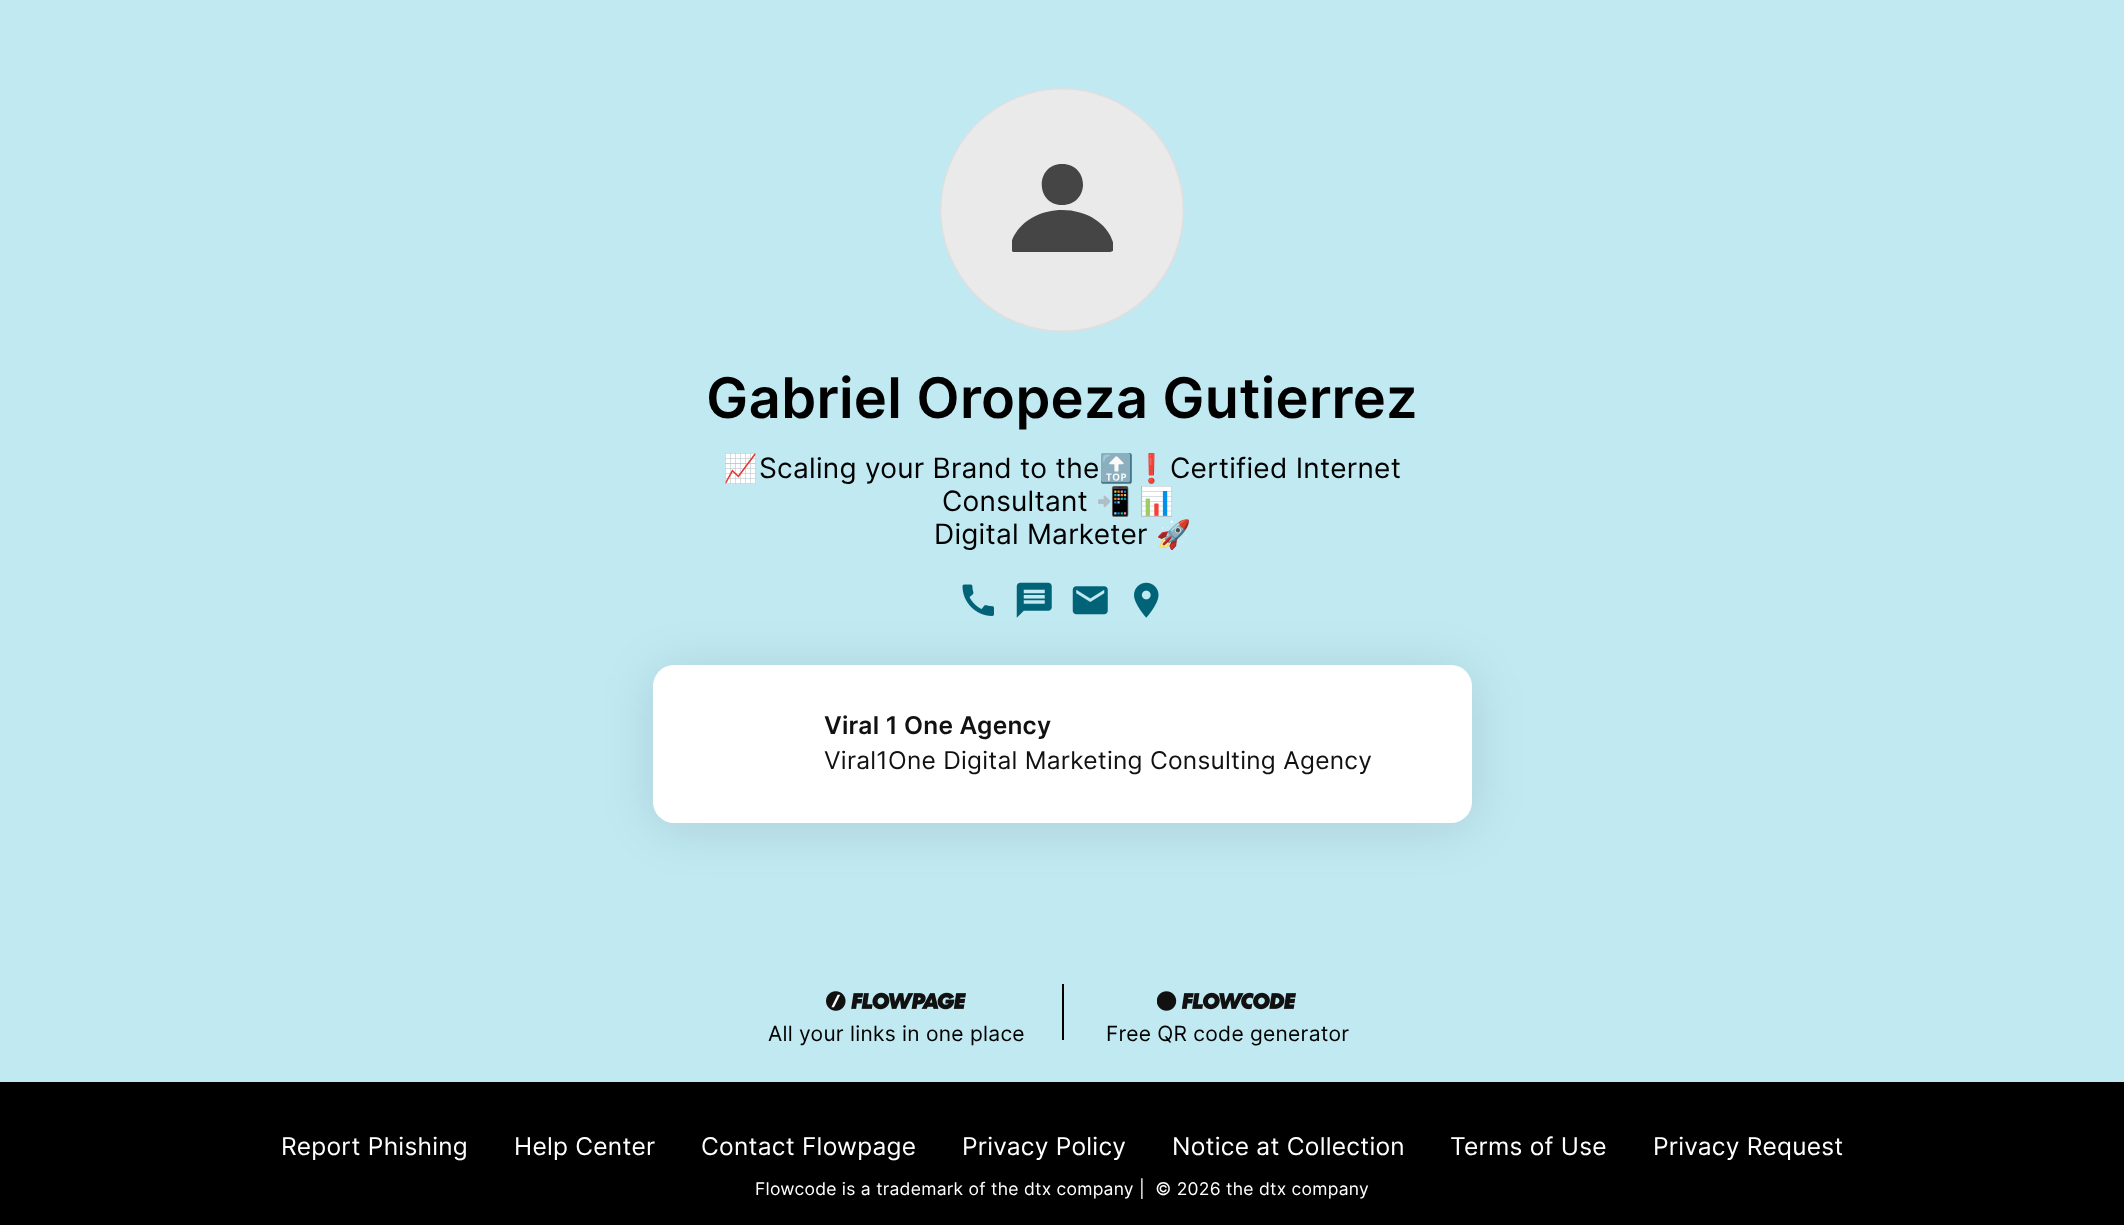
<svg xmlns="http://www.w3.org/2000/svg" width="2124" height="1225">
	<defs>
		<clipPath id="clip1"><rect x="940" y="88" width="245" height="245" rx="122.5" /></clipPath>
		<clipPath id="clip2"><rect x="1012" y="159" width="101" height="102" /></clipPath>
	</defs>
	<rect width="100%" height="100%" fill="#C0E9F1" />
	<circle cx="1062" cy="210" r="121.5" fill="#EAEAEA" />
	<g clip-path="url(#clip1)">
		<circle cx="1062" cy="210" r="121.5" fill="none" stroke="#DEDFE0" stroke-width="1.9" />
	</g>
	<g clip-path="url(#clip2)">
		<path d="M1062 205C1090 205 1090 164 1062 164C1035 164 1035 205 1062 205ZM1010 247C1014 226 1036 210 1062 210C1089 210 1111 226 1114 247C1115 250 1112 252 1109 252H1015C1012 252 1010 250 1010 247Z" fill="#454545" fill-rule="evenodd" />
	</g>
	<text x="706" y="418" font-family="Inter" font-size="56" font-weight="600" letter-spacing="0.25" fill="#000000">Gabriel Oropeza Gutierrez</text>
	<text x="723" y="478" font-family="Noto Color Emoji" font-size="28" letter-spacing="0.25" fill="#000000">📈</text>
	<text x="759" y="478" font-family="Inter" font-size="28" letter-spacing="0.25" fill="#000000">Scaling your Brand to the</text>
	<text x="1099" y="478" font-family="Noto Color Emoji" font-size="28" letter-spacing="0.25" fill="#000000">🔝❗️</text>
	<g font-family="Inter" font-size="28" letter-spacing="0.25" fill="#000000">
		<text x="1170" y="478">Certified Internet</text>
		<text x="942" y="511">Consultant</text>
	</g>
	<g font-family="Noto Color Emoji" font-size="28" letter-spacing="0.25" fill="#000000">
		<text x="1096" y="511">📲</text>
		<text x="1139" y="511">📊</text>
	</g>
	<text x="934" y="544" font-family="Inter" font-size="28" letter-spacing="0.25" fill="#000000">Digital Marketer</text>
	<text x="1156" y="544" font-family="Noto Color Emoji" font-size="28" letter-spacing="0.25" fill="#000000">🚀</text>
	<image x="962" y="584" width="32" height="32" href="assets/img1.png" />
	<image x="1016" y="582" width="36" height="36" href="assets/img2.png" />
	<image x="1072" y="586" width="36" height="29" href="assets/img3.png" />
	<image x="1134" y="582" width="25" height="36" href="assets/img4.png" />
	<rect x="653" y="670" width="819" height="158" rx="21" fill="#000000" fill-opacity="0.1" filter="blur(26px)" />
	<rect x="653" y="665" width="819" height="158" rx="21" fill="#FFFFFF" />
	<text x="824" y="734" font-family="Inter" font-size="24.5" font-weight="600" letter-spacing="0.25" fill="#111111">Viral 1 One Agency</text>
	<text x="824" y="769" font-family="Inter" font-size="24.5" letter-spacing="0.25" fill="#111111">Viral1One Digital Marketing Consulting Agency</text>
	<image x="826" y="991" width="140" height="20" href="assets/img5.png" />
	<text x="768" y="1041" font-family="Inter" font-size="21" letter-spacing="0.25" fill="#000000">All your links in one place</text>
	<rect x="1062" y="984" width="2" height="56" fill="#000000" />
	<image x="1157" y="991" width="139" height="20" href="assets/img6.png" />
	<text x="1106" y="1041" font-family="Inter" font-size="21" letter-spacing="0.25" fill="#000000">Free QR code generator</text>
	<rect x="0" y="1082" width="2124" height="143" fill="#000000" />
	<g font-family="Inter" font-size="24.5" letter-spacing="0.25" fill="#FFFFFF">
		<text x="281" y="1155">Report Phishing</text>
		<text x="514" y="1155">Help Center</text>
		<text x="701" y="1155">Contact Flowpage</text>
		<text x="962" y="1155">Privacy Policy</text>
		<text x="1172" y="1155">Notice at Collection</text>
		<text x="1450" y="1155">Terms of Use</text>
		<text x="1653" y="1155">Privacy Request</text>
	</g>
	<text x="755" y="1195" font-family="Inter" font-size="17.5" letter-spacing="0.25" fill="#FFFFFF" xml:space="preserve">Flowcode is a trademark of the dtx company |  © 2026 the dtx company</text>
</svg>
